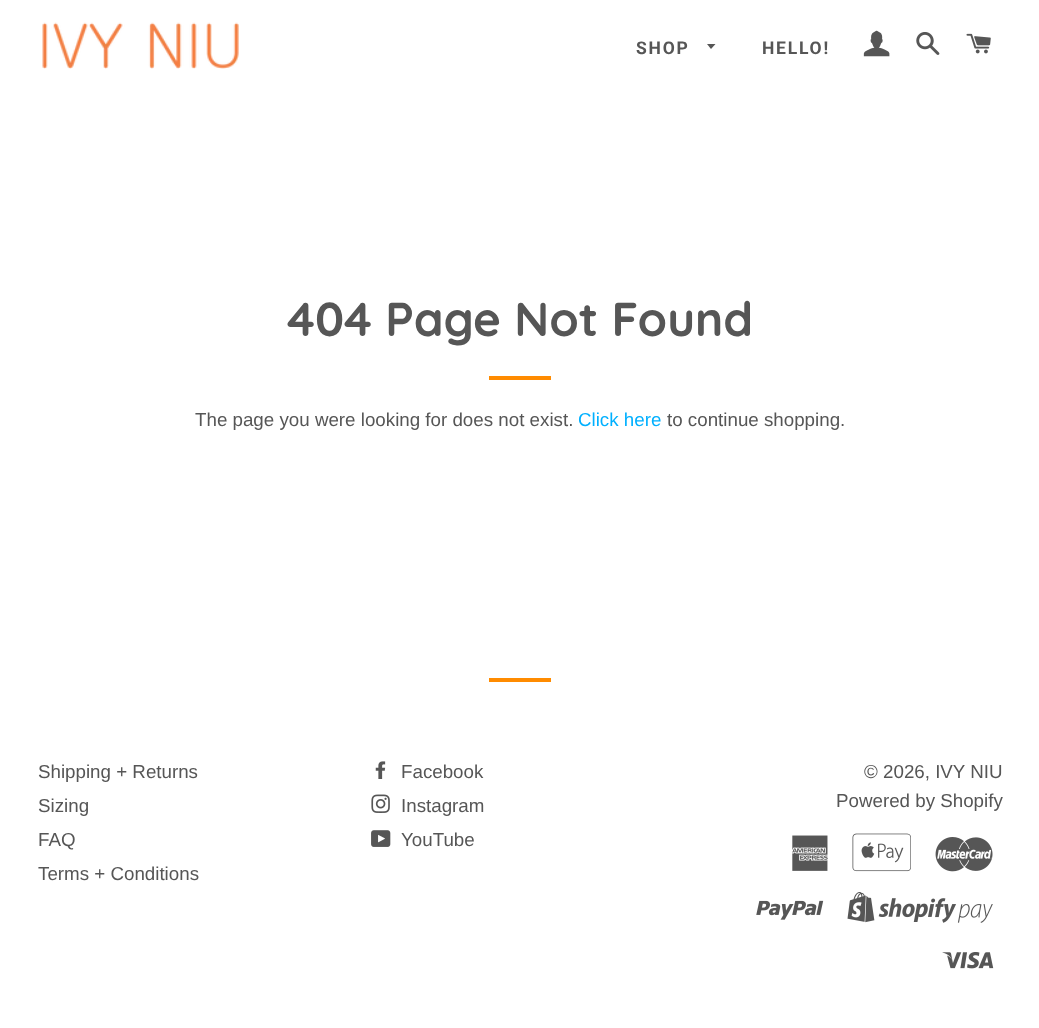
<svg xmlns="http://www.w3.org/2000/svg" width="1039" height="1028">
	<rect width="100%" height="100%" fill="#FFFFFF" />
	<image x="42" y="22" width="197" height="47" href="assets/img1.png" />
	<text x="636" y="54" font-family="Roboto" font-size="17.5" font-weight="700" letter-spacing="1.75" fill="#565656">SHOP</text>
	<path d="M707 44L711 49L715.5 44Z" fill="#565656" />
	<text x="762" y="54" font-family="Roboto" font-size="17.5" font-weight="700" letter-spacing="1.75" fill="#565656">HELLO!</text>
	<image x="863" y="30" width="27" height="27" href="assets/img2.png" />
	<image x="916" y="32" width="24" height="23" href="assets/img3.png" />
	<image x="966" y="33" width="25" height="21" href="assets/img4.png" />
	<text x="287" y="336" font-family="Quicksand" font-size="47.5" font-weight="300" fill="#565656">404 Page Not Found</text>
	<rect x="489" y="376" width="62" height="4" fill="#FF8B00" />
	<text x="195" y="426" font-family="Liberation Sans" font-size="18.75" fill="#565656">The page you were looking for does not exist.</text>
	<text x="578" y="426" font-family="Liberation Sans" font-size="18.75" fill="#00B0FF">Click here</text>
	<text x="667" y="426" font-family="Liberation Sans" font-size="18.75" fill="#565656">to continue shopping.</text>
	<rect x="489" y="678" width="62" height="4" fill="#FF8B00" />
	<g font-family="Liberation Sans" font-size="18.75" fill="#565656">
		<text x="38" y="778">Shipping + Returns</text>
		<text x="38" y="812">Sizing</text>
		<text x="38" y="846">FAQ</text>
		<text x="38" y="880">Terms + Conditions</text>
	</g>
	<image x="375" y="761" width="11" height="18" href="assets/img5.png" />
	<text x="401" y="778" font-family="Liberation Sans" font-size="18.75" fill="#565656">Facebook</text>
	<image x="371" y="794" width="19" height="19" href="assets/img6.png" />
	<text x="401" y="812" font-family="Liberation Sans" font-size="18.75" fill="#565656">Instagram</text>
	<image x="371" y="830" width="20" height="17" href="assets/img7.png" />
	<g font-family="Liberation Sans" font-size="18.75" fill="#565656">
		<text x="401" y="846">YouTube</text>
		<text x="864" y="778">© 2026, IVY NIU</text>
		<text x="836" y="807">Powered by Shopify</text>
	</g>
	<image x="792" y="835" width="36" height="36" href="assets/img8.png" />
	<image x="852" y="833" width="59" height="39" href="assets/img9.png" />
	<image x="935" y="837" width="58" height="35" href="assets/img10.png" />
	<image x="756" y="900" width="68" height="20" href="assets/img11.png" />
	<image x="847" y="892" width="146" height="31" href="assets/img12.png" />
	<image x="942" y="952" width="52" height="17" href="assets/img13.png" />
</svg>
